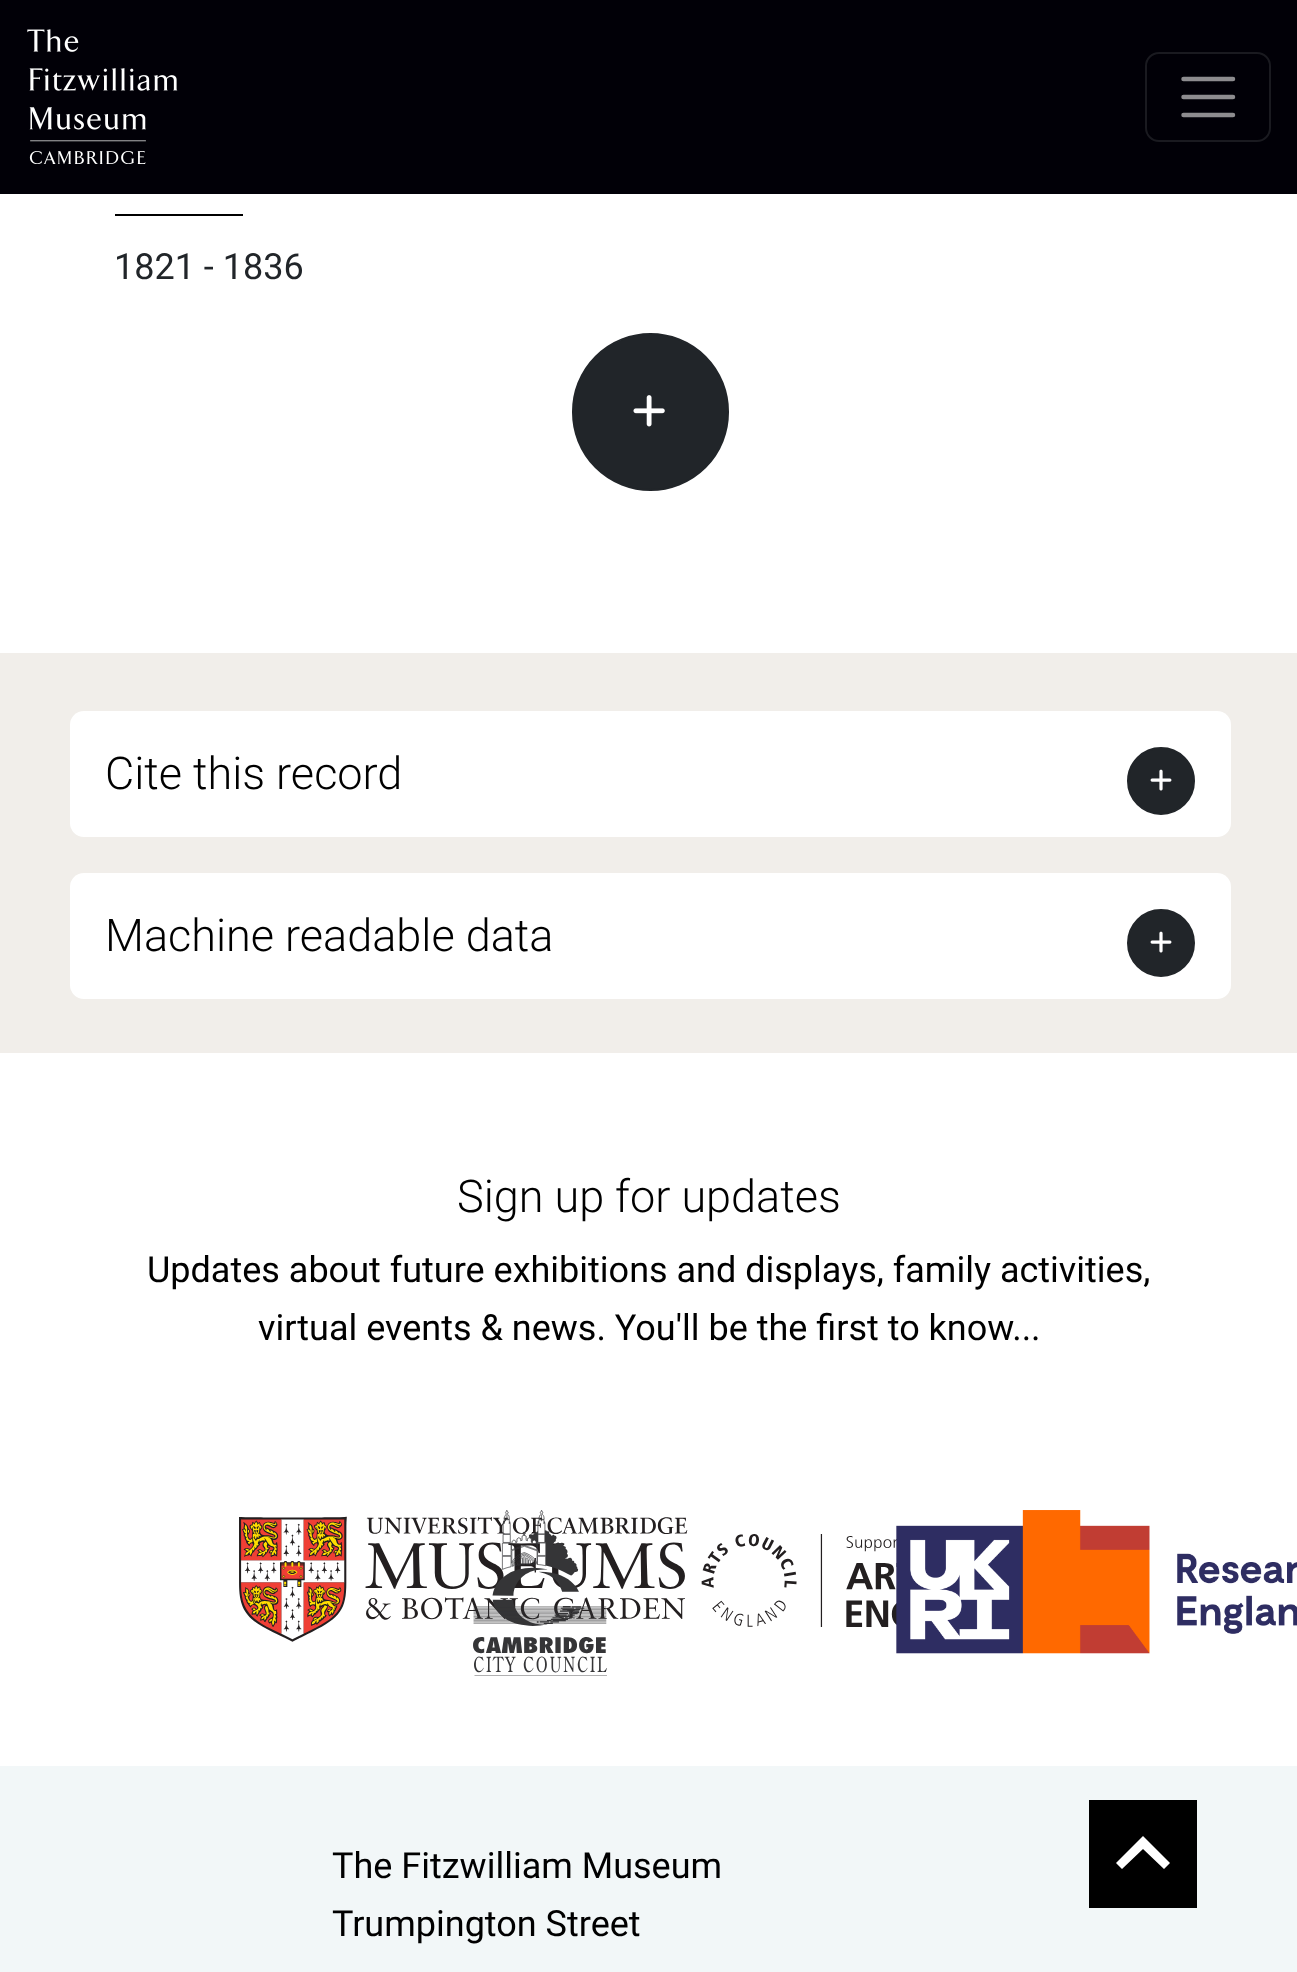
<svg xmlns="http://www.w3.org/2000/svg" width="1297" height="1972">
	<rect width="100%" height="100%" fill="#FFFFFF" />
	<rect x="0" y="0" width="1297" height="194" fill="#010007" />
	<image x="27" y="29" width="151" height="135" href="assets/img1.png" />
	<rect x="1146" y="53" width="124" height="88" rx="13" fill="none" stroke="#1A1A20" stroke-width="2" />
	<path d="M1183.5 79H1233M1183.5 97H1233M1183.5 115H1233" fill="none" stroke="#8D8C8F" stroke-width="4.5" stroke-linecap="round" />
	<rect x="115" y="214" width="128" height="2" fill="#000000" />
	<text x="114" y="279" font-family="Roboto" font-size="36" fill="#212529">1821 - 1836</text>
	<rect x="573" y="334" width="155" height="156" rx="77.5" fill="#212529" stroke="#212529" stroke-width="2" />
	<image x="633" y="395" width="32" height="32" href="assets/img2.png" />
	<rect x="0" y="653" width="1297" height="400" fill="#F1EEEA" />
	<rect x="70" y="711" width="1161" height="126" rx="14" fill="#FFFFFF" />
	<text x="105" y="789" font-family="Roboto" font-size="45" font-weight="300" fill="#000000">Cite this record</text>
	<circle cx="1161" cy="781" r="33" fill="#212529" stroke="#212529" stroke-width="2" />
	<image x="1150" y="769" width="22" height="22" href="assets/img3.png" />
	<rect x="70" y="873" width="1161" height="126" rx="14" fill="#FFFFFF" />
	<text x="105" y="951" font-family="Roboto" font-size="45" font-weight="300" fill="#000000">Machine readable data</text>
	<circle cx="1161" cy="943" r="33" fill="#212529" stroke="#212529" stroke-width="2" />
	<image x="1150" y="931" width="22" height="22" href="assets/img3.png" />
	<text x="457" y="1212" font-family="Roboto" font-size="45" font-weight="300" fill="#000000">Sign up for updates</text>
	<g font-family="Roboto" font-size="36" fill="#000000">
		<text x="147" y="1282">Updates about future exhibitions and displays, family activities,</text>
		<text x="258" y="1340">virtual events &amp; news. You'll be the first to know...</text>
	</g>
	<image x="239" y="1516" width="449" height="126" href="assets/img6.png" />
	<image x="473" y="1510" width="134" height="166" href="assets/img4.png" />
	<image x="701" y="1534" width="196" height="93" href="assets/img7.png" />
	<image x="896" y="1510" width="401" height="144" href="assets/img5.png" />
	<rect x="0" y="1766" width="1297" height="206" fill="#F2F7F8" />
	<g font-family="Roboto" font-size="36" fill="#000000">
		<text x="332" y="1878">The Fitzwilliam Museum</text>
		<text x="332" y="1936">Trumpington Street</text>
	</g>
	<rect x="1089" y="1800" width="108" height="108" fill="#000000" />
	<path d="M1122 1869L1143 1849L1164 1869L1170 1863L1143 1836L1116 1863Z" fill="#FFFFFF" />
</svg>
